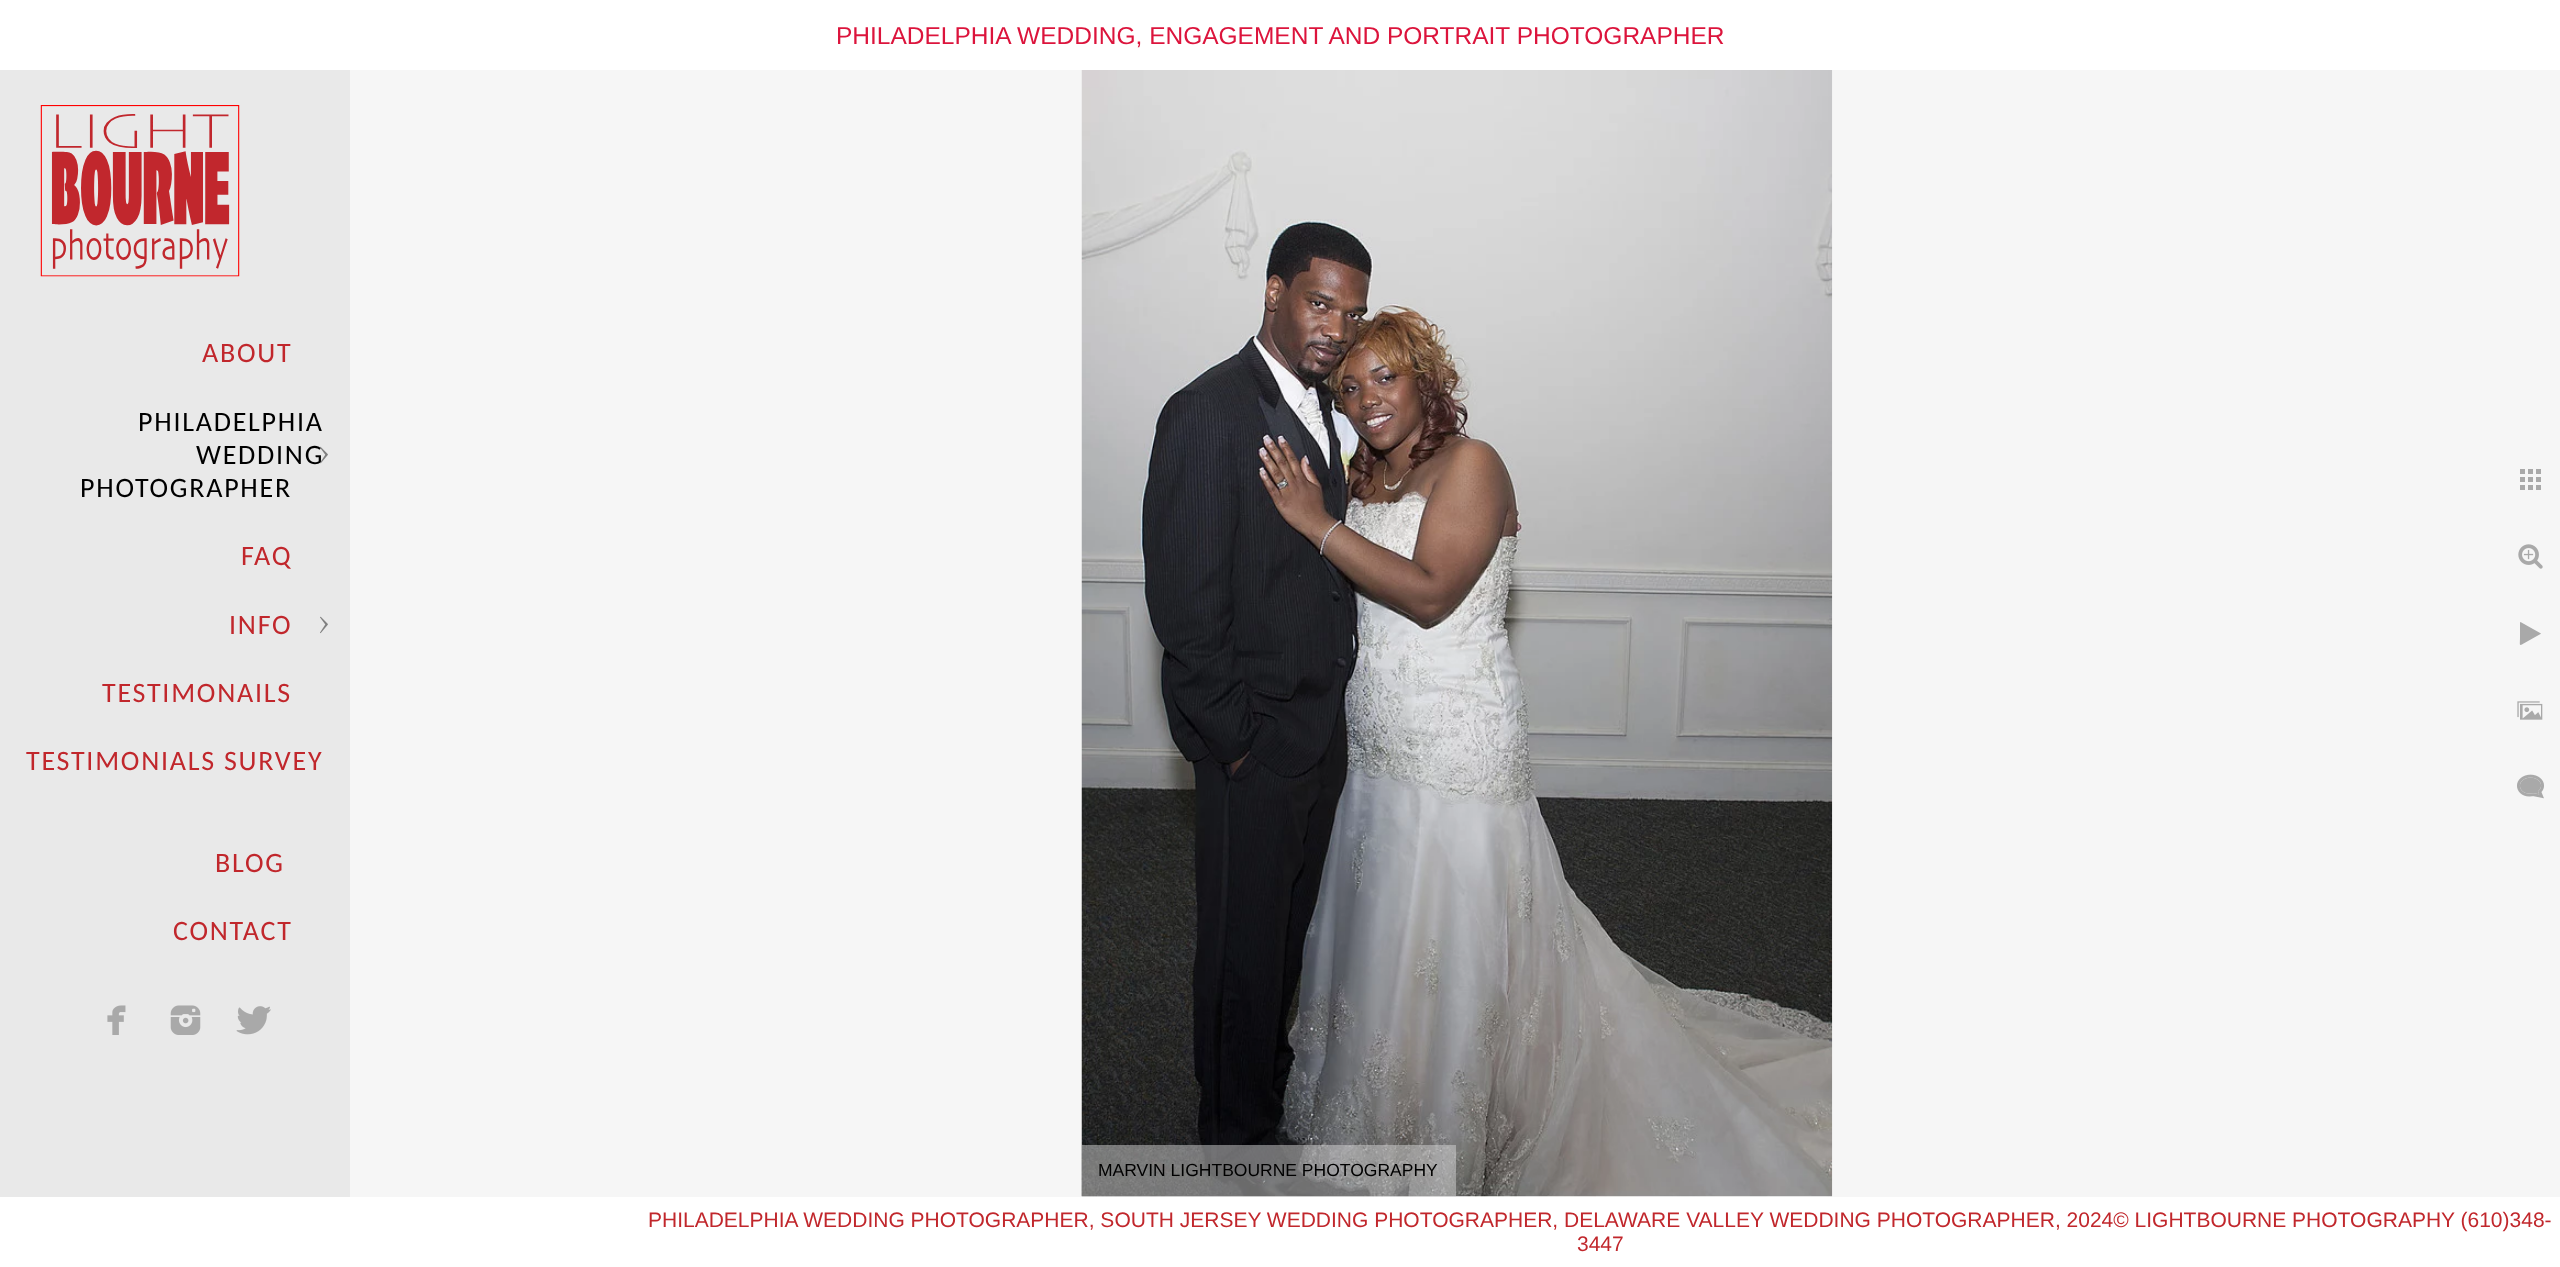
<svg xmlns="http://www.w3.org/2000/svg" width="2560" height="1267">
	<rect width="100%" height="100%" fill="#F6F6F6" />
	<rect x="0" y="0" width="2560" height="70" fill="#FFFFFF" />
	<text x="836" y="44" font-family="Liberation Sans" font-size="24.5" fill="#DC143C">PHILADELPHIA WEDDING, ENGAGEMENT AND PORTRAIT PHOTOGRAPHER</text>
	<rect x="0" y="70" width="350" height="1127" fill="#E9E9E9" />
	<image x="40" y="105" width="200" height="172" href="assets/img1.png" />
	<text x="202" y="362" font-family="Carlito" font-size="28" letter-spacing="1.75" fill="#C1272C">ABOUT</text>
	<g font-family="Carlito" font-size="28" letter-spacing="1.75" fill="#000000">
		<text x="138" y="431">PHILADELPHIA</text>
		<text x="196" y="464">WEDDING</text>
	</g>
	<image x="320" y="446" width="8" height="18" href="assets/img2.png" />
	<text x="80" y="497" font-family="Carlito" font-size="28" letter-spacing="1.75" fill="#000000">PHOTOGRAPHER</text>
	<g font-family="Carlito" font-size="28" letter-spacing="1.75" fill="#C1272C">
		<text x="241" y="565">FAQ</text>
		<text x="229" y="634">INFO</text>
	</g>
	<image x="320" y="616" width="8" height="18" href="assets/img3.png" />
	<g font-family="Carlito" font-size="28" letter-spacing="1.75" fill="#C1272C">
		<text x="102" y="702">TESTIMONAILS</text>
		<text x="26" y="770">TESTIMONIALS SURVEY</text>
		<text x="215" y="872">BLOG</text>
		<text x="173" y="940">CONTACT</text>
	</g>
	<image x="107" y="1005" width="19" height="30" href="assets/img4.png" />
	<image x="170" y="1005" width="31" height="30" href="assets/img5.png" />
	<image x="236" y="1006" width="35" height="29" href="assets/img6.png" />
	<image x="2520" y="469" width="21" height="21" href="assets/img7.png" />
	<image x="2518" y="544" width="25" height="25" href="assets/img8.png" />
	<path d="M2540.5 634L2524.5 643C2518.5 646.5 2520 645.5 2520 637V622.5L2520.5 622L2541 633.5Z" fill="#A9A9A9" />
	<image x="2517" y="701" width="26" height="19" href="assets/img9.png" />
	<image x="2517" y="774" width="27" height="25" href="assets/img10.png" />
	<image x="1081" y="70" width="752" height="1127" href="assets/img11.png" />
	<rect x="1082" y="1145" width="374" height="52" fill="#D3D3D3" fill-opacity="0.5" />
	<text x="1098" y="1176" font-family="Liberation Sans" font-size="17.5" fill="#000000">MARVIN LIGHTBOURNE PHOTOGRAPHY</text>
	<rect x="0" y="1197" width="2560" height="70" fill="#FFFFFF" />
	<g font-family="Liberation Sans" font-size="21" fill="#C1272C">
		<text x="648" y="1227">PHILADELPHIA WEDDING PHOTOGRAPHER, SOUTH JERSEY WEDDING PHOTOGRAPHER, DELAWARE VALLEY WEDDING PHOTOGRAPHER, 2024© LIGHTBOURNE PHOTOGRAPHY (610)348-</text>
		<text x="1577" y="1251">3447</text>
	</g>
</svg>
